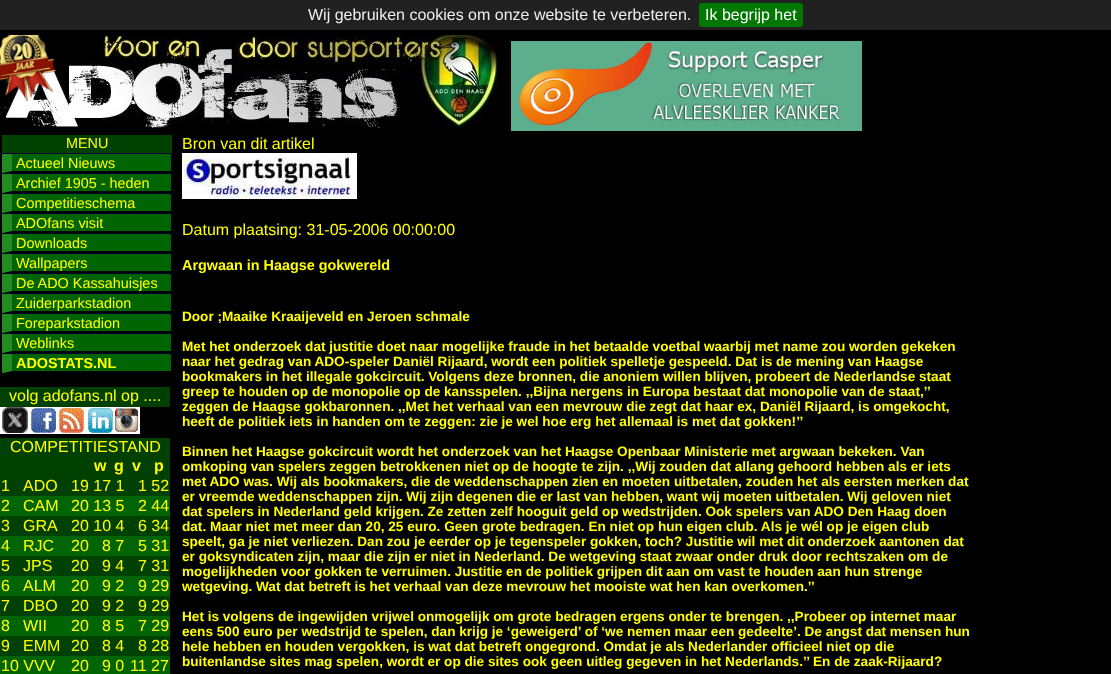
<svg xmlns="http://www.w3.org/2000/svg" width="1111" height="674">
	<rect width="100%" height="100%" fill="#000000" />
	<rect x="0" y="0" width="1111" height="30" fill="#212121" />
	<text x="308" y="20" font-family="Liberation Sans" font-size="16" fill="#EEEEEE">Wij gebruiken cookies om onze website te verbeteren.</text>
	<rect x="699" y="3" width="104" height="24" rx="3" fill="#007700" />
	<text x="705" y="20" font-family="Liberation Sans" font-size="16" fill="#FFFFFF">Ik begrijp het</text>
	<image x="0" y="35" width="498" height="93" href="assets/img1.png" />
	<image x="511" y="41" width="351" height="90" href="assets/img2.png" />
	<rect x="2" y="135" width="170" height="18" fill="#004000" />
	<text x="66" y="148" font-family="Liberation Sans" font-size="14.4" fill="#FFFF00">MENU</text>
	<rect x="2" y="153" width="170" height="1" fill="#000033" />
	<rect x="2" y="154" width="169" height="19" fill="#006400" />
	<path d="M172 173H2L12 171H171Z" fill="#000000" />
	<path d="M2 173V154H12V171Z" fill="#228B22" />
	<text x="16" y="168" font-family="Liberation Sans" font-size="14.4" fill="#FFFF00">Actueel Nieuws</text>
	<rect x="2" y="173" width="170" height="1" fill="#000033" />
	<rect x="2" y="174" width="169" height="19" fill="#006400" />
	<path d="M172 193H2L12 191H171Z" fill="#000000" />
	<path d="M2 193V174H12V191Z" fill="#228B22" />
	<text x="16" y="188" font-family="Liberation Sans" font-size="14.4" fill="#FFFF00">Archief 1905 - heden</text>
	<rect x="2" y="193" width="170" height="1" fill="#000033" />
	<rect x="2" y="194" width="169" height="19" fill="#006400" />
	<path d="M172 213H2L12 211H171Z" fill="#000000" />
	<path d="M2 213V194H12V211Z" fill="#228B22" />
	<text x="16" y="208" font-family="Liberation Sans" font-size="14.4" fill="#FFFF00">Competitieschema</text>
	<rect x="2" y="213" width="170" height="1" fill="#000033" />
	<rect x="2" y="214" width="169" height="19" fill="#006400" />
	<path d="M172 233H2L12 231H171Z" fill="#000000" />
	<path d="M2 233V214H12V231Z" fill="#228B22" />
	<text x="16" y="228" font-family="Liberation Sans" font-size="14.4" fill="#FFFF00">ADOfans visit</text>
	<rect x="2" y="233" width="170" height="1" fill="#000033" />
	<rect x="2" y="234" width="169" height="19" fill="#006400" />
	<path d="M172 253H2L12 251H171Z" fill="#000000" />
	<path d="M2 253V234H12V251Z" fill="#228B22" />
	<text x="16" y="248" font-family="Liberation Sans" font-size="14.4" fill="#FFFF00">Downloads</text>
	<rect x="2" y="253" width="170" height="1" fill="#000033" />
	<rect x="2" y="254" width="169" height="19" fill="#006400" />
	<path d="M172 273H2L12 271H171Z" fill="#000000" />
	<path d="M2 273V254H12V271Z" fill="#228B22" />
	<text x="16" y="268" font-family="Liberation Sans" font-size="14.4" fill="#FFFF00">Wallpapers</text>
	<rect x="2" y="273" width="170" height="1" fill="#000033" />
	<rect x="2" y="274" width="169" height="19" fill="#006400" />
	<path d="M172 293H2L12 291H171Z" fill="#000000" />
	<path d="M2 293V274H12V291Z" fill="#228B22" />
	<text x="16" y="288" font-family="Liberation Sans" font-size="14.4" fill="#FFFF00">De ADO Kassahuisjes</text>
	<rect x="2" y="293" width="170" height="1" fill="#000033" />
	<rect x="2" y="294" width="169" height="19" fill="#006400" />
	<path d="M172 313H2L12 311H171Z" fill="#000000" />
	<path d="M2 313V294H12V311Z" fill="#228B22" />
	<text x="16" y="308" font-family="Liberation Sans" font-size="14.4" fill="#FFFF00">Zuiderparkstadion</text>
	<rect x="2" y="313" width="170" height="1" fill="#000033" />
	<rect x="2" y="314" width="169" height="19" fill="#006400" />
	<path d="M172 333H2L12 331H171Z" fill="#000000" />
	<path d="M2 333V314H12V331Z" fill="#228B22" />
	<text x="16" y="328" font-family="Liberation Sans" font-size="14.4" fill="#FFFF00">Foreparkstadion</text>
	<rect x="2" y="333" width="170" height="1" fill="#000033" />
	<rect x="2" y="334" width="169" height="19" fill="#006400" />
	<path d="M172 353H2L12 351H171Z" fill="#000000" />
	<path d="M2 353V334H12V351Z" fill="#228B22" />
	<text x="16" y="348" font-family="Liberation Sans" font-size="14.4" fill="#FFFF00">Weblinks</text>
	<rect x="2" y="353" width="170" height="1" fill="#000033" />
	<rect x="2" y="354" width="169" height="19" fill="#006400" />
	<path d="M172 373H2L12 371H171Z" fill="#000000" />
	<path d="M2 373V354H12V371Z" fill="#228B22" />
	<text x="16" y="368" font-family="Liberation Sans" font-size="14.4" font-weight="700" fill="#FFFF00">ADOSTATS.NL</text>
	<rect x="0" y="387" width="170" height="20" fill="#004000" />
	<text x="9" y="401" font-family="Liberation Sans" font-size="16" fill="#FFFF00">volg adofans.nl op ....</text>
	<image x="0" y="407" width="140" height="27" href="assets/img3.png" />
	<rect x="0" y="438" width="170" height="18" fill="#004000" />
	<text x="10" y="452" font-family="Liberation Sans" font-size="16" fill="#FFFF00">COMPETITIESTAND</text>
	<rect x="0" y="456" width="170" height="40" fill="#004000" />
	<g font-family="Liberation Sans" font-size="16" font-weight="700" fill="#FFFF00">
		<text x="94" y="471">w</text>
		<text x="114" y="471">g</text>
		<text x="132" y="471">v</text>
		<text x="154" y="471">p</text>
	</g>
	<g font-family="Liberation Sans" font-size="16" fill="#FFFF00">
		<text x="1" y="491">1</text>
		<text x="23" y="491">ADO</text>
		<text x="71" y="491">19 17 1</text>
		<text x="138" y="491">1 52</text>
	</g>
	<rect x="0" y="496" width="170" height="20" fill="#006400" />
	<g font-family="Liberation Sans" font-size="16" fill="#FFFF00">
		<text x="1" y="511">2</text>
		<text x="23" y="511">CAM</text>
		<text x="71" y="511">20 13 5</text>
		<text x="138" y="511">2 44</text>
	</g>
	<rect x="0" y="516" width="170" height="20" fill="#004000" />
	<g font-family="Liberation Sans" font-size="16" fill="#FFFF00">
		<text x="1" y="531">3</text>
		<text x="23" y="531">GRA</text>
		<text x="71" y="531">20 10 4</text>
		<text x="138" y="531">6 34</text>
	</g>
	<rect x="0" y="536" width="170" height="20" fill="#006400" />
	<g font-family="Liberation Sans" font-size="16" fill="#FFFF00">
		<text x="1" y="551">4</text>
		<text x="23" y="551">RJC</text>
		<text x="71" y="551">20</text>
		<text x="102" y="551">8 7</text>
		<text x="138" y="551">5 31</text>
	</g>
	<rect x="0" y="556" width="170" height="20" fill="#004000" />
	<g font-family="Liberation Sans" font-size="16" fill="#FFFF00">
		<text x="1" y="571">5</text>
		<text x="23" y="571">JPS</text>
		<text x="71" y="571">20</text>
		<text x="102" y="571">9 4</text>
		<text x="138" y="571">7 31</text>
	</g>
	<rect x="0" y="576" width="170" height="20" fill="#006400" />
	<g font-family="Liberation Sans" font-size="16" fill="#FFFF00">
		<text x="1" y="591">6</text>
		<text x="23" y="591">ALM</text>
		<text x="71" y="591">20</text>
		<text x="102" y="591">9 2</text>
		<text x="138" y="591">9 29</text>
	</g>
	<rect x="0" y="596" width="170" height="20" fill="#004000" />
	<g font-family="Liberation Sans" font-size="16" fill="#FFFF00">
		<text x="1" y="611">7</text>
		<text x="23" y="611">DBO</text>
		<text x="71" y="611">20</text>
		<text x="102" y="611">9 2</text>
		<text x="138" y="611">9 29</text>
	</g>
	<rect x="0" y="616" width="170" height="20" fill="#006400" />
	<g font-family="Liberation Sans" font-size="16" fill="#FFFF00">
		<text x="1" y="631">8</text>
		<text x="23" y="631">WII</text>
		<text x="71" y="631">20</text>
		<text x="102" y="631">8 5</text>
		<text x="138" y="631">7 29</text>
	</g>
	<rect x="0" y="636" width="170" height="20" fill="#004000" />
	<g font-family="Liberation Sans" font-size="16" fill="#FFFF00">
		<text x="1" y="651">9</text>
		<text x="23" y="651">EMM</text>
		<text x="71" y="651">20</text>
		<text x="102" y="651">8 4</text>
		<text x="138" y="651">8 28</text>
	</g>
	<rect x="0" y="656" width="170" height="18" fill="#006400" />
	<g font-family="Liberation Sans" font-size="16" fill="#FFFF00">
		<text x="1" y="671">10 VVV</text>
		<text x="71" y="671">20</text>
		<text x="102" y="671">9 0</text>
		<text x="130" y="671">11 27</text>
		<text x="182" y="149">Bron van dit artikel</text>
	</g>
	<image x="182" y="153" width="175" height="46" href="assets/img4.png" />
	<text x="182" y="235" font-family="Liberation Sans" font-size="16" fill="#FFFF00">Datum plaatsing: 31-05-2006 00:00:00</text>
	<text x="182" y="270" font-family="Liberation Sans" font-size="14.4" font-weight="700" fill="#FFFF00">Argwaan in Haagse gokwereld</text>
	<g font-family="Liberation Sans" font-size="13.6" font-weight="700" fill="#FFFF00">
		<text x="182" y="321">Door ;Maaike Kraaijeveld en Jeroen schmale</text>
		<text x="182" y="351">Met het onderzoek dat justitie doet naar mogelijke fraude in het betaalde voetbal waarbij met name zou worden gekeken</text>
		<text x="182" y="366">naar het gedrag van ADO-speler Daniël Rijaard, wordt een politiek spelletje gespeeld. Dat is de mening van Haagse</text>
		<text x="182" y="381">bookmakers in het illegale gokcircuit. Volgens deze bronnen, die anoniem willen blijven, probeert de Nederlandse staat</text>
		<text x="182" y="396">greep te houden op de monopolie op de kansspelen. ,,Bijna nergens in Europa bestaat dat monopolie van de staat,’’</text>
		<text x="182" y="411">zeggen de Haagse gokbaronnen. ,,Met het verhaal van een mevrouw die zegt dat haar ex, Daniël Rijaard, is omgekocht,</text>
		<text x="182" y="426">heeft de politiek iets in handen om te zeggen: zie je wel hoe erg het allemaal is met dat gokken!’’</text>
		<text x="182" y="456">Binnen het Haagse gokcircuit wordt het onderzoek van het Haagse Openbaar Ministerie met argwaan bekeken. Van</text>
		<text x="182" y="471">omkoping van spelers zeggen betrokkenen niet op de hoogte te zijn. ,,Wij zouden dat allang gehoord hebben als er iets</text>
		<text x="182" y="486">met ADO was. Wij als bookmakers, die de weddenschappen zien en moeten uitbetalen, zouden het als eersten merken dat</text>
		<text x="182" y="501">er vreemde weddenschappen zijn. Wij zijn degenen die er last van hebben, want wij moeten uitbetalen. Wij geloven niet</text>
		<text x="182" y="516">dat spelers in Nederland geld krijgen. Ze zetten zelf hooguit geld op wedstrijden. Ook spelers van ADO Den Haag doen</text>
		<text x="182" y="531">dat. Maar niet met meer dan 20, 25 euro. Geen grote bedragen. En niet op hun eigen club. Als je wél op je eigen club</text>
		<text x="182" y="546">speelt, ga je niet verliezen. Dan zou je eerder op je tegenspeler gokken, toch? Justitie wil met dit onderzoek aantonen dat</text>
		<text x="182" y="561">er goksyndicaten zijn, maar die zijn er niet in Nederland. De wetgeving staat zwaar onder druk door rechtszaken om de</text>
		<text x="182" y="576">mogelijkheden voor gokken te verruimen. Justitie en de politiek grijpen dit aan om vast te houden aan hun strenge</text>
		<text x="182" y="591">wetgeving. Wat dat betreft is het verhaal van deze mevrouw het mooiste wat hen kan overkomen.’’</text>
		<text x="182" y="621">Het is volgens de ingewijden vrijwel onmogelijk om grote bedragen ergens onder te brengen. ,,Probeer op internet maar</text>
		<text x="182" y="636">eens 500 euro per wedstrijd te spelen, dan krijg je ‘geweigerd’ of ‘we nemen maar een gedeelte’. De angst dat mensen hun</text>
		<text x="182" y="651">hele hebben en houden vergokken, is wat dat betreft ongegrond. Omdat je als Nederlander officieel niet op die</text>
		<text x="182" y="666">buitenlandse sites mag spelen, wordt er op die sites ook geen uitleg gegeven in het Nederlands.’’ En de zaak-Rijaard?</text>
	</g>
</svg>
